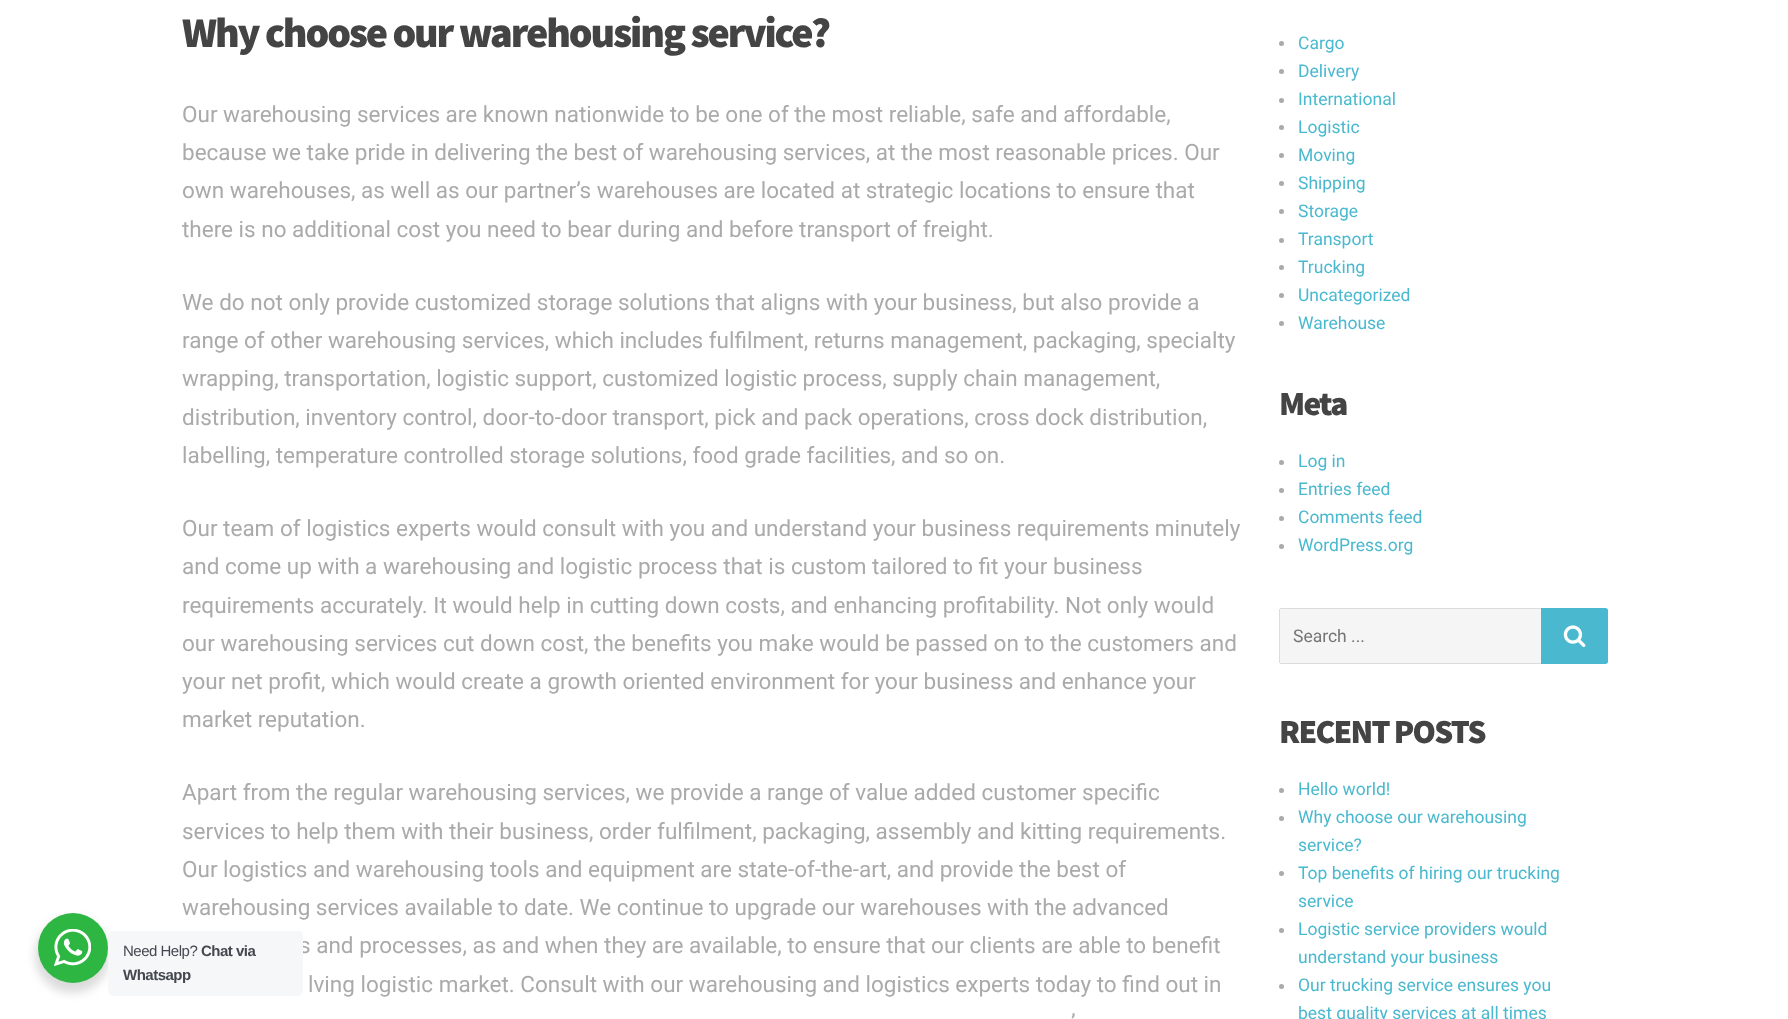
<svg xmlns="http://www.w3.org/2000/svg" width="1788" height="1019">
	<rect width="100%" height="100%" fill="#FFFFFF" />
	<text x="182" y="47" font-family="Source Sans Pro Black" font-size="42.5" font-weight="900" letter-spacing="-2.1" fill="#444444">Why choose our warehousing service?</text>
	<g font-family="Roboto" font-size="22.5" fill="#AAAAAA">
		<text x="182" y="122">Our warehousing services are known nationwide to be one of the most reliable, safe and affordable,</text>
		<text x="182" y="160">because we take pride in delivering the best of warehousing services, at the most reasonable prices. Our</text>
		<text x="182" y="198">own warehouses, as well as our partner’s warehouses are located at strategic locations to ensure that</text>
		<text x="182" y="237">there is no additional cost you need to bear during and before transport of freight.</text>
		<text x="182" y="310">We do not only provide customized storage solutions that aligns with your business, but also provide a</text>
		<text x="182" y="348">range of other warehousing services, which includes fulfilment, returns management, packaging, specialty</text>
		<text x="182" y="386">wrapping, transportation, logistic support, customized logistic process, supply chain management,</text>
		<text x="182" y="425">distribution, inventory control, door-to-door transport, pick and pack operations, cross dock distribution,</text>
		<text x="182" y="463">labelling, temperature controlled storage solutions, food grade facilities, and so on.</text>
		<text x="182" y="536">Our team of logistics experts would consult with you and understand your business requirements minutely</text>
		<text x="182" y="574">and come up with a warehousing and logistic process that is custom tailored to fit your business</text>
		<text x="182" y="613">requirements accurately. It would help in cutting down costs, and enhancing profitability. Not only would</text>
		<text x="182" y="651">our warehousing services cut down cost, the benefits you make would be passed on to the customers and</text>
		<text x="182" y="689">your net profit, which would create a growth oriented environment for your business and enhance your</text>
		<text x="182" y="727">market reputation.</text>
		<text x="182" y="800">Apart from the regular warehousing services, we provide a range of value added customer specific</text>
		<text x="182" y="839">services to help them with their business, order fulfilment, packaging, assembly and kitting requirements.</text>
		<text x="182" y="877">Our logistics and warehousing tools and equipment are state-of-the-art, and provide the best of</text>
		<text x="182" y="915">warehousing services available to date. We continue to upgrade our warehouses with the advanced</text>
		<text x="299" y="953">s and processes, as and when they are available, to ensure that our clients are able to benefit</text>
		<text x="308" y="992">lving logistic market. Consult with our warehousing and logistics experts today to find out in</text>
		<text x="1071" y="1030">’</text>
	</g>
	<circle cx="1281.5" cy="43.5" r="2.5" fill="#AAAAAA" />
	<text x="1298" y="49" font-family="Roboto" font-size="17.5" fill="#4AB9CF">Cargo</text>
	<circle cx="1281.5" cy="71.5" r="2.5" fill="#AAAAAA" />
	<text x="1298" y="77" font-family="Roboto" font-size="17.5" fill="#4AB9CF">Delivery</text>
	<circle cx="1281.5" cy="100.5" r="2.5" fill="#AAAAAA" />
	<text x="1298" y="105" font-family="Roboto" font-size="17.5" fill="#4AB9CF">International</text>
	<circle cx="1281.5" cy="127.5" r="2.5" fill="#AAAAAA" />
	<text x="1298" y="133" font-family="Roboto" font-size="17.5" fill="#4AB9CF">Logistic</text>
	<circle cx="1281.5" cy="155.5" r="2.5" fill="#AAAAAA" />
	<text x="1298" y="161" font-family="Roboto" font-size="17.5" fill="#4AB9CF">Moving</text>
	<circle cx="1281.5" cy="183.5" r="2.5" fill="#AAAAAA" />
	<text x="1298" y="189" font-family="Roboto" font-size="17.5" fill="#4AB9CF">Shipping</text>
	<circle cx="1281.5" cy="211.5" r="2.5" fill="#AAAAAA" />
	<text x="1298" y="217" font-family="Roboto" font-size="17.5" fill="#4AB9CF">Storage</text>
	<circle cx="1281.5" cy="240.5" r="2.5" fill="#AAAAAA" />
	<text x="1298" y="245" font-family="Roboto" font-size="17.5" fill="#4AB9CF">Transport</text>
	<circle cx="1281.5" cy="267.5" r="2.5" fill="#AAAAAA" />
	<text x="1298" y="273" font-family="Roboto" font-size="17.5" fill="#4AB9CF">Trucking</text>
	<circle cx="1281.5" cy="295.5" r="2.5" fill="#AAAAAA" />
	<text x="1298" y="301" font-family="Roboto" font-size="17.5" fill="#4AB9CF">Uncategorized</text>
	<circle cx="1281.5" cy="323.5" r="2.5" fill="#AAAAAA" />
	<text x="1298" y="329" font-family="Roboto" font-size="17.5" fill="#4AB9CF">Warehouse</text>
	<text x="1279" y="415" font-family="Source Sans Pro Black" font-size="33.75" font-weight="900" letter-spacing="-1.75" fill="#444444">Meta</text>
	<circle cx="1281.5" cy="462.5" r="2.5" fill="#AAAAAA" />
	<text x="1298" y="467" font-family="Roboto" font-size="17.5" fill="#4AB9CF">Log in</text>
	<circle cx="1281.5" cy="490.5" r="2.5" fill="#AAAAAA" />
	<text x="1298" y="495" font-family="Roboto" font-size="17.5" fill="#4AB9CF">Entries feed</text>
	<circle cx="1281.5" cy="518.5" r="2.5" fill="#AAAAAA" />
	<text x="1298" y="523" font-family="Roboto" font-size="17.5" fill="#4AB9CF">Comments feed</text>
	<circle cx="1281.5" cy="546.5" r="2.5" fill="#AAAAAA" />
	<text x="1298" y="551" font-family="Roboto" font-size="17.5" fill="#4AB9CF">WordPress.org</text>
	<path d="M1281.5 608H1541V664H1281.5C1280 664 1279 663 1279 661.5V610.5C1279 609 1280 608 1281.5 608Z" fill="#F5F5F5" />
	<rect x="1280" y="608" width="261" height="1" fill="#000000" fill-opacity="0.1" />
	<rect x="1280" y="663" width="261" height="1" fill="#000000" fill-opacity="0.1" />
	<rect x="1279" y="609" width="1" height="54" fill="#000000" fill-opacity="0.1" />
	<text x="1293" y="642" font-family="Roboto" font-size="17.5" fill="#757575">Search ...</text>
	<path d="M1541 608H1605.5C1607 608 1608 609 1608 610.5V661.5C1608 663 1607 664 1605.5 664H1541Z" fill="#4AB9CF" />
	<image x="1563" y="625" width="23" height="23" href="assets/img1.png" />
	<text x="1279" y="743" font-family="Source Sans Pro Black" font-size="33.75" font-weight="900" letter-spacing="-1.75" fill="#444444">RECENT POSTS</text>
	<circle cx="1281.5" cy="790.5" r="2.5" fill="#AAAAAA" />
	<text x="1298" y="795" font-family="Roboto" font-size="17.5" fill="#4AB9CF">Hello world!</text>
	<circle cx="1281.5" cy="818.5" r="2.5" fill="#AAAAAA" />
	<g font-family="Roboto" font-size="17.5" fill="#4AB9CF">
		<text x="1298" y="823">Why choose our warehousing</text>
		<text x="1298" y="851">service?</text>
	</g>
	<circle cx="1281.5" cy="873.5" r="2.5" fill="#AAAAAA" />
	<g font-family="Roboto" font-size="17.5" fill="#4AB9CF">
		<text x="1298" y="879">Top benefits of hiring our trucking</text>
		<text x="1298" y="907">service</text>
	</g>
	<circle cx="1281.5" cy="930.5" r="2.5" fill="#AAAAAA" />
	<g font-family="Roboto" font-size="17.5" fill="#4AB9CF">
		<text x="1298" y="935">Logistic service providers would</text>
		<text x="1298" y="963">understand your business</text>
	</g>
	<circle cx="1281.5" cy="986.5" r="2.5" fill="#AAAAAA" />
	<g font-family="Roboto" font-size="17.5" fill="#4AB9CF">
		<text x="1298" y="991">Our trucking service ensures you</text>
		<text x="1298" y="1019">best quality services at all times</text>
	</g>
	<rect x="35" y="918" width="75" height="75" rx="37.5" fill="#000000" fill-opacity="0.14" filter="blur(5px)" />
	<circle cx="73" cy="948" r="35" fill="#2DB742" />
	<image x="54" y="929" width="37" height="37" href="assets/img2.png" />
	<rect x="108" y="931" width="195" height="65" rx="5" fill="#F5F7F9" />
	<text x="123" y="956" font-family="Liberation Sans" font-size="15" letter-spacing="-0.5" fill="#43474E">Need Help?</text>
	<g font-family="Liberation Sans" font-size="15" font-weight="700" letter-spacing="-0.5" fill="#43474E">
		<text x="201" y="956">Chat via</text>
		<text x="123" y="980">Whatsapp</text>
	</g>
</svg>
